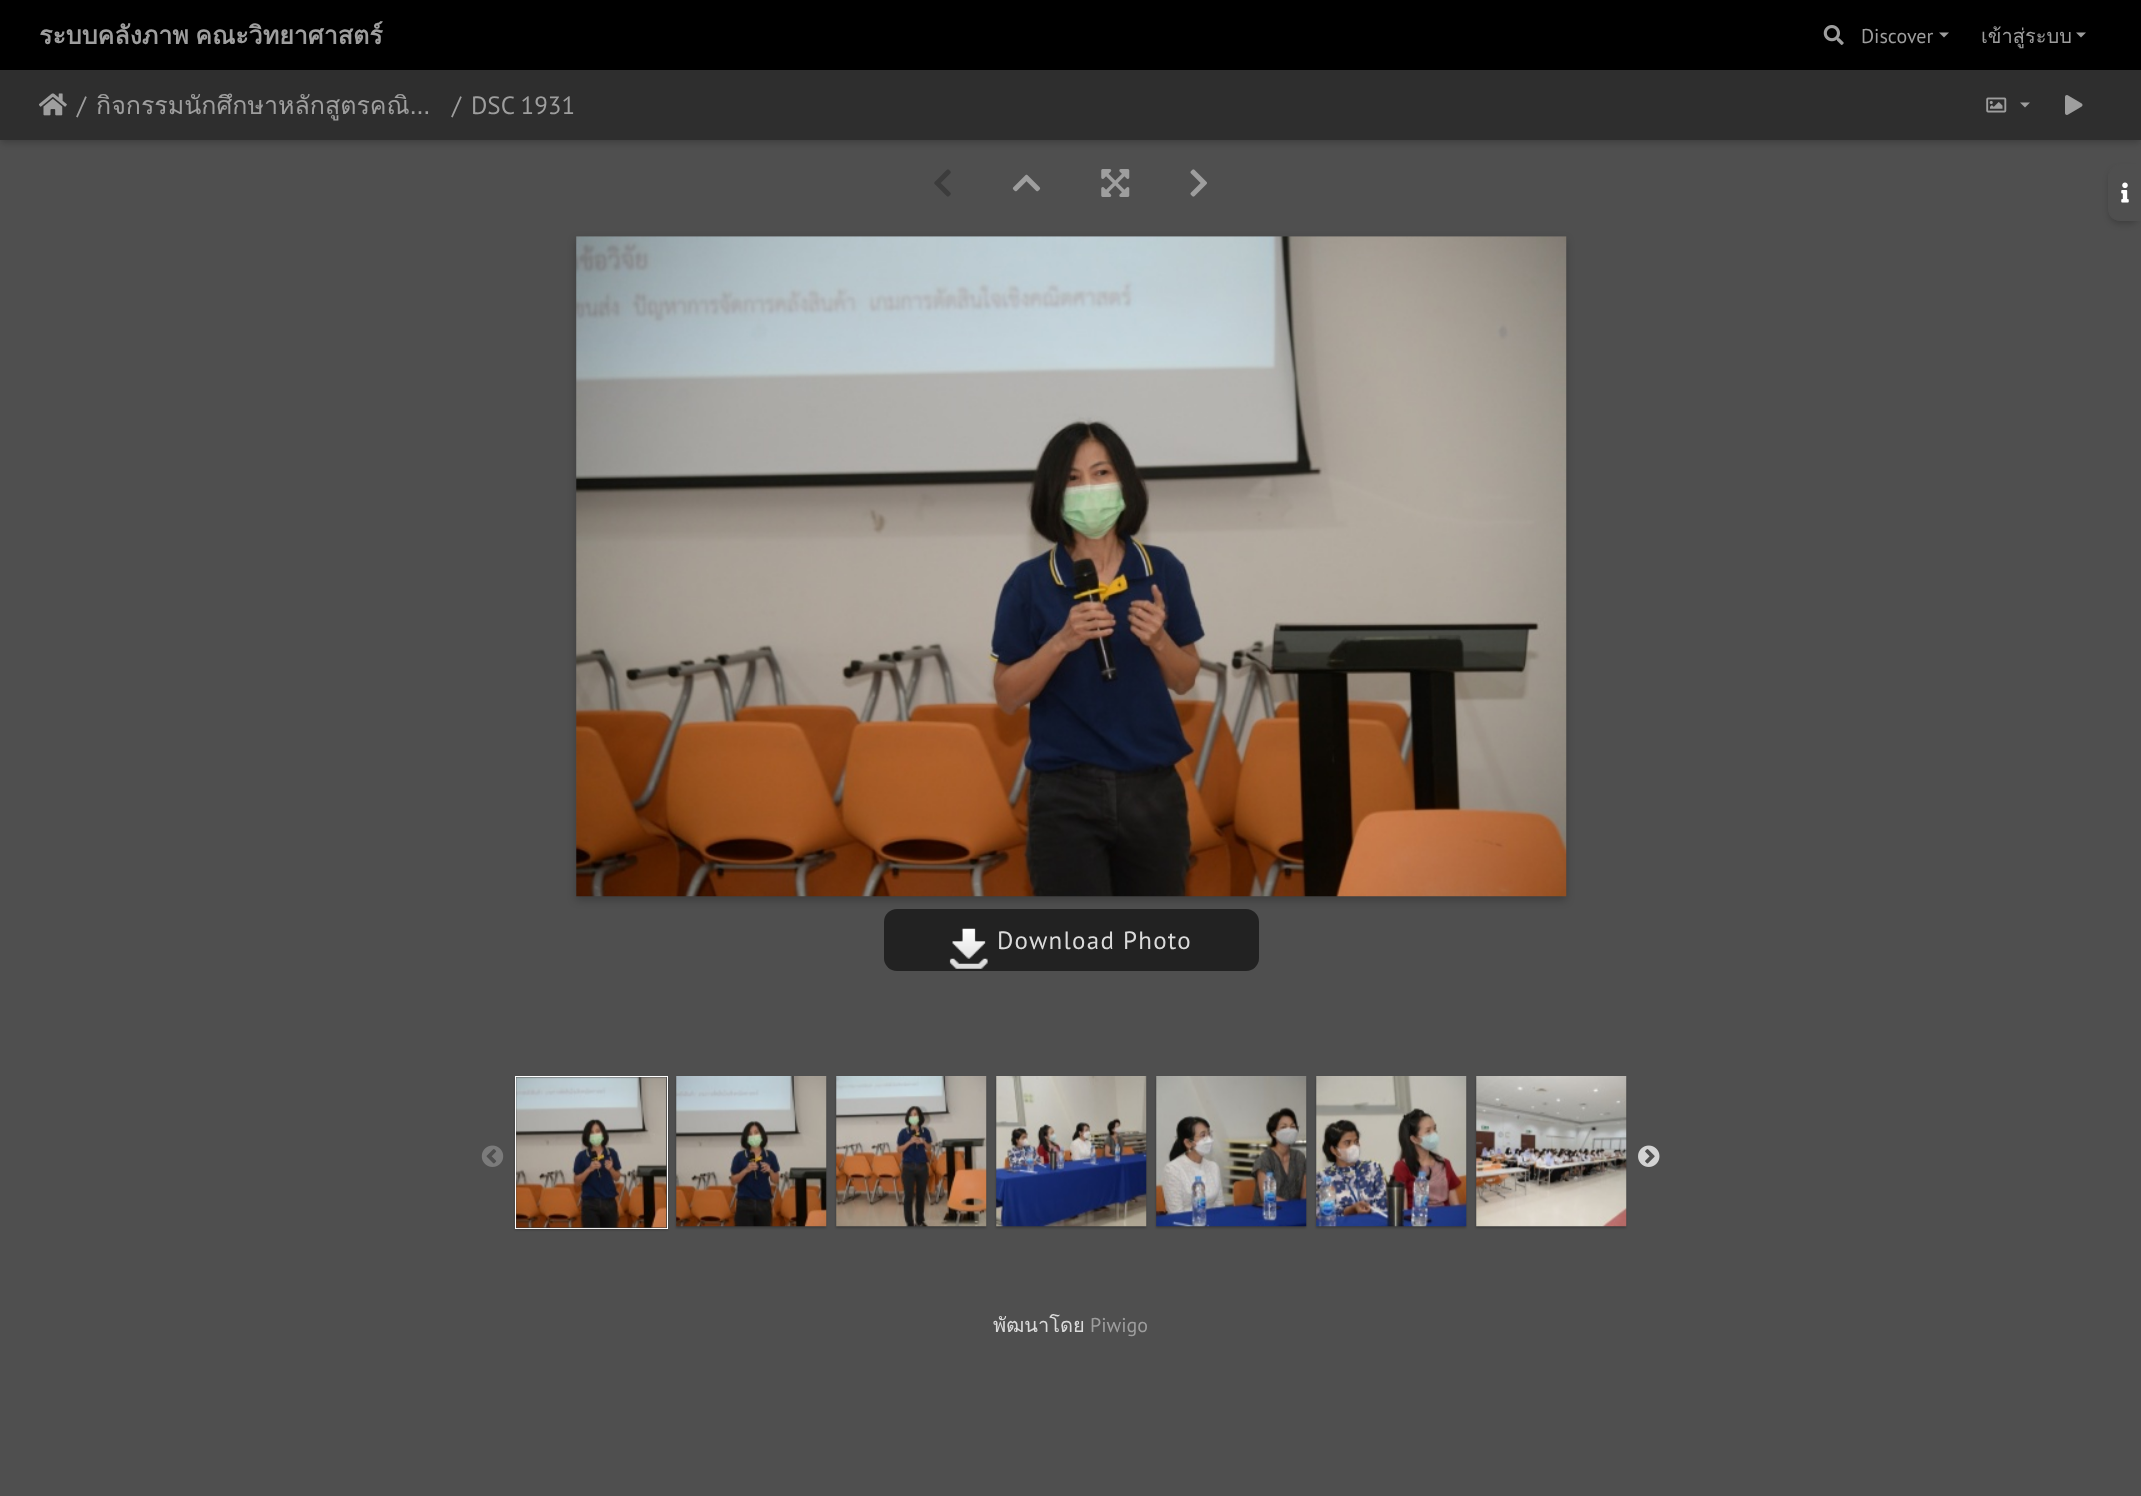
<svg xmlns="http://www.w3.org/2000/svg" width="2141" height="1496">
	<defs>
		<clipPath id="clip1"><path d="M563 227H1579V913H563ZM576 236H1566V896H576Z" clip-rule="evenodd" /></clipPath>
	</defs>
	<rect width="100%" height="100%" fill="#4F4F4F" />
	<rect x="1" y="75" width="2139" height="68" fill="#000000" fill-opacity="0.2" filter="blur(3px)" />
	<rect x="0" y="0" width="2141" height="70" fill="#000000" />
	<text x="39" y="44" word-spacing="-2" font-family="Loma" font-size="25" font-weight="700" fill="#9E9E9E">ระบบคลังภาพ คณะวิทยาศาสตร์</text>
	<image x="1823" y="25" width="21" height="20" href="assets/img1.png" />
	<text x="1861" y="43" font-family="PT Sans" font-size="20" fill="#9E9E9E">Discover</text>
	<path d="M1939 32.5H1949L1944 37.5Z" fill="#9E9E9E" />
	<text x="1981" y="43" font-family="Loma" font-size="20" fill="#9E9E9E">เข้าสู่ระบบ</text>
	<path d="M2076 32.5H2086L2081 37.5Z" fill="#9E9E9E" />
	<rect x="0" y="70" width="2141" height="70" fill="#2E2E2E" />
	<image x="39" y="93" width="28" height="23" href="assets/img2.png" />
	<text x="77" y="114" font-family="PT Sans" font-size="25" fill="#9E9E9E">/</text>
	<text x="96" y="114" font-family="Loma" font-size="25" fill="#9E9E9E">กิจกรรมนักศึกษาหลักสูตรคณิ…</text>
	<g font-family="PT Sans" font-size="25" fill="#9E9E9E">
		<text x="452" y="114">/</text>
		<text x="471" y="114">DSC 1931</text>
	</g>
	<image x="1986" y="97" width="21" height="16" href="assets/img3.png" />
	<path d="M2020 102.5H2030L2025 107.5Z" fill="#9E9E9E" />
	<image x="2065" y="95" width="18" height="20" href="assets/img4.png" />
	<image x="934" y="169" width="17" height="28" href="assets/img5.png" />
	<image x="1012" y="174" width="29" height="18" href="assets/img6.png" />
	<image x="1101" y="169" width="29" height="28" href="assets/img7.png" />
	<image x="1190" y="169" width="17" height="28" href="assets/img8.png" />
	<rect x="2109" y="169" width="31" height="55" rx="11" fill="#000000" fill-opacity="0.2" filter="blur(3px)" />
	<path d="M2121 164H2141V221H2121C2114 221 2108 215 2108 208V177C2108 170 2114 164 2121 164Z" fill="#4F4F4F" />
	<path d="M2120 164H2141V221H2120C2113 221 2108 216 2108 209V176C2108 169 2113 164 2120 164ZM2120 165H2141V220H2120C2114 220 2109 215 2109 209V176C2109 170 2114 165 2120 165Z" fill="#4F4F4F" fill-rule="evenodd" />
	<image x="2121" y="182" width="8" height="21" href="assets/img9.png" />
	<rect x="884" y="909" width="375" height="62" rx="13" fill="#222222" />
	<g clip-path="url(#clip1)">
		<rect x="576" y="240" width="990" height="660" fill="#000000" fill-opacity="0.23" filter="blur(4px)" />
	</g>
	<image x="576" y="236" width="991" height="661" href="assets/img10.png" />
	<image x="949" y="928" width="39" height="41" href="assets/img11.png" />
	<text x="997" y="949" font-family="PT Sans" font-size="25" letter-spacing="1.25" fill="#DBDBDB">Download Photo</text>
	<image x="481" y="1145" width="23" height="22" href="assets/img12.png" />
	<rect x="515" y="1078" width="153" height="152" fill="#000000" fill-opacity="0.24" filter="blur(1px)" />
	<rect x="515.5" y="1076.5" width="152" height="152" fill="none" stroke="#FFFFFF" />
	<image x="516" y="1077" width="151" height="152" href="assets/img13.png" />
	<rect x="676" y="1078" width="150" height="150" fill="#000000" fill-opacity="0.24" filter="blur(1px)" />
	<image x="676" y="1076" width="151" height="151" href="assets/img14.png" />
	<rect x="836" y="1078" width="150" height="150" fill="#000000" fill-opacity="0.24" filter="blur(1px)" />
	<image x="836" y="1076" width="151" height="151" href="assets/img15.png" />
	<rect x="996" y="1078" width="150" height="150" fill="#000000" fill-opacity="0.24" filter="blur(1px)" />
	<image x="996" y="1076" width="151" height="151" href="assets/img16.png" />
	<rect x="1156" y="1078" width="150" height="150" fill="#000000" fill-opacity="0.24" filter="blur(1px)" />
	<image x="1156" y="1076" width="151" height="151" href="assets/img17.png" />
	<rect x="1316" y="1078" width="150" height="150" fill="#000000" fill-opacity="0.24" filter="blur(1px)" />
	<image x="1316" y="1076" width="151" height="151" href="assets/img18.png" />
	<rect x="1476" y="1078" width="150" height="150" fill="#000000" fill-opacity="0.24" filter="blur(1px)" />
	<image x="1476" y="1076" width="151" height="151" href="assets/img19.png" />
	<image x="1638" y="1145" width="22" height="22" href="assets/img20.png" />
	<text x="993" y="1332" font-family="Loma" font-size="20" fill="#DBDBDB">พัฒนาโดย</text>
	<text x="1090" y="1332" font-family="PT Sans" font-size="20" fill="#9E9E9E">Piwigo</text>
</svg>
